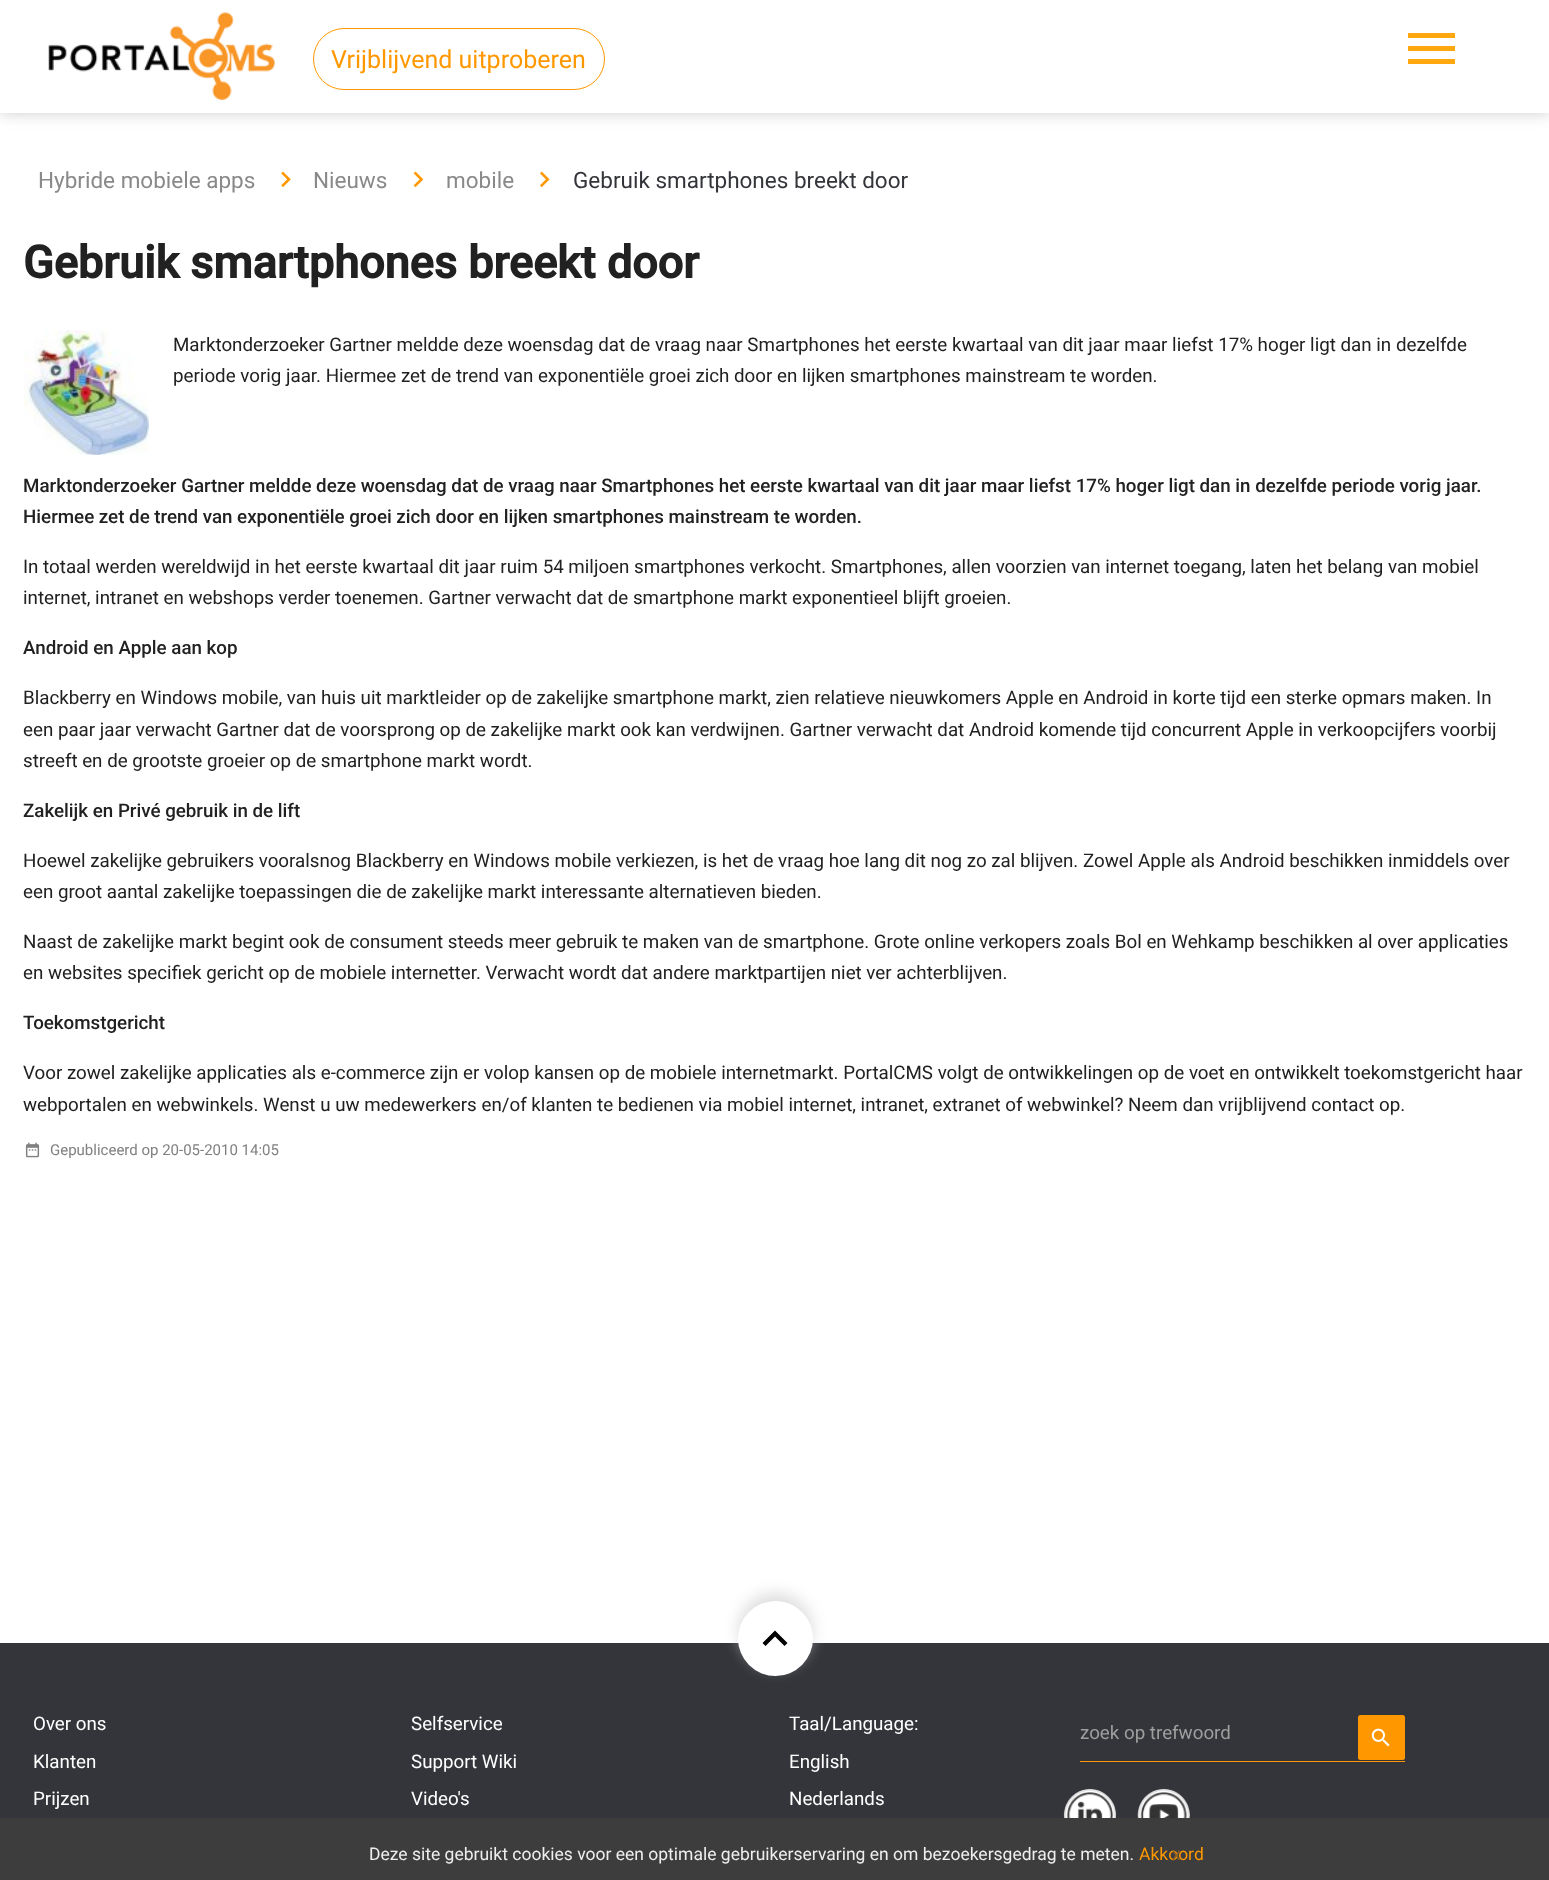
<svg xmlns="http://www.w3.org/2000/svg" width="1549" height="1880">
	<rect width="100%" height="100%" fill="#FFFFFF" />
	<rect x="0" y="0" width="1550" height="113" fill="#CCCCCC" filter="blur(7.5px)" />
	<rect x="0" y="0" width="1549" height="113" fill="#FFFFFF" />
	<image x="48" y="12" width="227" height="88" href="assets/img1.png" />
	<rect x="313.5" y="28.5" width="291" height="61" rx="30.5" fill="none" stroke="#FF9800" />
	<text x="331" y="68" font-family="Roboto" font-size="25" fill="#FF9800">Vrijblijvend uitproberen</text>
	<path d="M1408 33H1455V38H1408ZM1408 51V46H1455V51ZM1408 64V59H1455V64Z" fill="#FFA70F" />
	<text x="38" y="188" font-family="Roboto" font-size="22.5" fill="#8A8989">Hybride mobiele apps</text>
	<image x="281" y="171" width="10" height="16" href="assets/img2.png" />
	<text x="313" y="188" font-family="Roboto" font-size="22.5" fill="#8A8989">Nieuws</text>
	<image x="413" y="171" width="11" height="17" href="assets/img3.png" />
	<text x="446" y="188" font-family="Roboto" font-size="22.5" fill="#8A8989">mobile</text>
	<image x="540" y="171" width="10" height="17" href="assets/img4.png" />
	<text x="573" y="188" font-family="Roboto" font-size="22.5" fill="#34353A">Gebruik smartphones breekt door</text>
	<text x="23" y="278" font-family="Roboto" font-size="45" font-weight="700" fill="#212121">Gebruik smartphones breekt door</text>
	<image x="24" y="330" width="125" height="125" href="assets/img5.png" />
	<g font-family="Roboto" font-size="18.75" fill="#212121">
		<text x="173" y="351">Marktonderzoeker Gartner meldde deze woensdag dat de vraag naar Smartphones het eerste kwartaal van dit jaar maar liefst 17% hoger ligt dan in dezelfde</text>
		<text x="173" y="382">periode vorig jaar. Hiermee zet de trend van exponentiële groei zich door en lijken smartphones mainstream te worden.</text>
	</g>
	<g font-family="Roboto" font-size="18.75" font-weight="500" fill="#212121">
		<text x="23" y="492">Marktonderzoeker Gartner meldde deze woensdag dat de vraag naar Smartphones het eerste kwartaal van dit jaar maar liefst 17% hoger ligt dan in dezelfde periode vorig jaar.</text>
		<text x="23" y="523">Hiermee zet de trend van exponentiële groei zich door en lijken smartphones mainstream te worden.</text>
	</g>
	<g font-family="Roboto" font-size="18.75" fill="#212121">
		<text x="23" y="573">In totaal werden wereldwijd in het eerste kwartaal dit jaar ruim 54 miljoen smartphones verkocht. Smartphones, allen voorzien van internet toegang, laten het belang van mobiel</text>
		<text x="23" y="604">internet, intranet en webshops verder toenemen. Gartner verwacht dat de smartphone markt exponentieel blijft groeien.</text>
	</g>
	<text x="23" y="654" font-family="Roboto" font-size="18.75" font-weight="500" fill="#212121">Android en Apple aan kop</text>
	<g font-family="Roboto" font-size="18.75" fill="#212121">
		<text x="23" y="704">Blackberry en Windows mobile, van huis uit marktleider op de zakelijke smartphone markt, zien relatieve nieuwkomers Apple en Android in korte tijd een sterke opmars maken. In</text>
		<text x="23" y="736">een paar jaar verwacht Gartner dat de voorsprong op de zakelijke markt ook kan verdwijnen. Gartner verwacht dat Android komende tijd concurrent Apple in verkoopcijfers voorbij</text>
		<text x="23" y="767">streeft en de grootste groeier op de smartphone markt wordt.</text>
	</g>
	<text x="23" y="817" font-family="Roboto" font-size="18.75" font-weight="500" fill="#212121">Zakelijk en Privé gebruik in de lift</text>
	<g font-family="Roboto" font-size="18.75" fill="#212121">
		<text x="23" y="867">Hoewel zakelijke gebruikers vooralsnog Blackberry en Windows mobile verkiezen, is het de vraag hoe lang dit nog zo zal blijven. Zowel Apple als Android beschikken inmiddels over</text>
		<text x="23" y="898">een groot aantal zakelijke toepassingen die de zakelijke markt interessante alternatieven bieden.</text>
		<text x="23" y="948">Naast de zakelijke markt begint ook de consument steeds meer gebruik te maken van de smartphone. Grote online verkopers zoals Bol en Wehkamp beschikken al over applicaties</text>
		<text x="23" y="979">en websites specifiek gericht op de mobiele internetter. Verwacht wordt dat andere marktpartijen niet ver achterblijven.</text>
	</g>
	<text x="23" y="1029" font-family="Roboto" font-size="18.75" font-weight="500" fill="#212121">Toekomstgericht</text>
	<g font-family="Roboto" font-size="18.75" fill="#212121">
		<text x="23" y="1079">Voor zowel zakelijke applicaties als e-commerce zijn er volop kansen op de mobiele internetmarkt. PortalCMS volgt de ontwikkelingen op de voet en ontwikkelt toekomstgericht haar</text>
		<text x="23" y="1111">webportalen en webwinkels. Wenst u uw medewerkers en/of klanten te bedienen via mobiel internet, intranet, extranet of webwinkel? Neem dan vrijblijvend contact op.</text>
	</g>
	<image x="25" y="1142" width="15" height="16" href="assets/img6.png" />
	<text x="50" y="1155" font-family="Roboto" font-size="15" fill="#808080">Gepubliceerd op 20-05-2010 14:05</text>
	<rect x="0" y="1643" width="1549" height="175" fill="#34353A" />
	<rect x="738" y="1593" width="75" height="75" rx="37.5" fill="#CCCCCC" fill-opacity="0.65" filter="blur(7.5px)" />
	<circle cx="775.5" cy="1638.5" r="37.5" fill="#FFFFFF" />
	<path d="M765.5 1646L762.5 1643L775 1630.5L787.5 1643L784.5 1646L775 1636.5Z" fill="#000000" />
	<g font-family="Roboto" font-size="18.75" fill="#FFFFFF">
		<text x="33" y="1730">Over ons</text>
		<text x="33" y="1768">Klanten</text>
		<text x="33" y="1805">Prijzen</text>
		<text x="411" y="1730">Selfservice</text>
		<text x="411" y="1768">Support Wiki</text>
		<text x="411" y="1805">Video's</text>
		<text x="789" y="1730">Taal/Language:</text>
		<text x="789" y="1768">English</text>
		<text x="789" y="1805">Nederlands</text>
	</g>
	<rect x="1080" y="1761" width="325" height="1" fill="#FF9800" />
	<text x="1080" y="1739" font-family="Roboto" font-size="18.75" fill="#9E9E9E">zoek op trefwoord</text>
	<rect x="1358" y="1715" width="47" height="45" rx="2.5" fill="#FF9800" />
	<image x="1371" y="1728" width="19" height="19" href="assets/img7.png" />
	<image x="1063" y="1788" width="54" height="30" href="assets/img8.png" />
	<image x="1137" y="1788" width="53" height="30" href="assets/img9.png" />
	<rect x="0" y="1818" width="1549" height="62" fill="#3D3D3D" />
	<text x="369" y="1860" font-family="Roboto" font-size="17.5" fill="#EEEEEE">Deze site gebruikt cookies voor een optimale gebruikerservaring en om bezoekersgedrag te meten.</text>
	<text x="1139" y="1860" font-family="Roboto" font-size="17.5" fill="#FF9800">Akkoord</text>
	<text x="1172" y="1860" font-family="Roboto" font-size="17.5" fill="#8B6224">x</text>
</svg>
